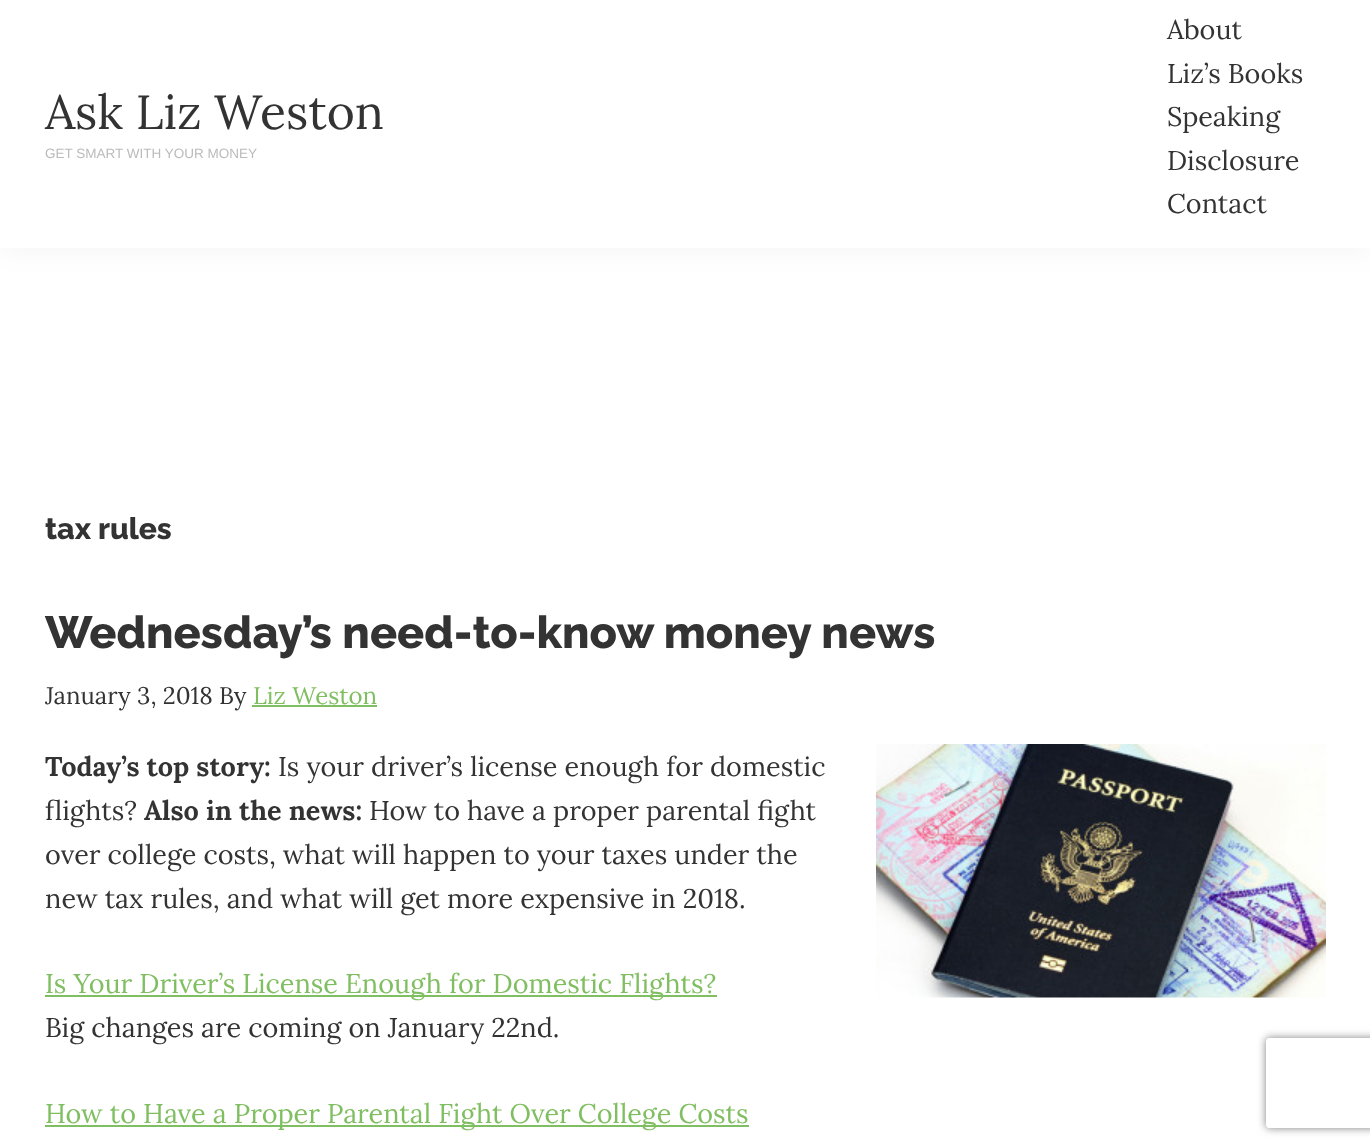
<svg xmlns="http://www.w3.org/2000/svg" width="1370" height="1148">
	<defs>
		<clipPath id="clip1"><path d="M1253 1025H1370V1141H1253ZM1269 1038H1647C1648.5 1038 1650 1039.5 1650 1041V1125C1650 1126.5 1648.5 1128 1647 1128H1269C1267.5 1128 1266 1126.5 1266 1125V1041C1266 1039.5 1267.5 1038 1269 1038Z" clip-rule="evenodd" /></clipPath>
	</defs>
	<rect width="100%" height="100%" fill="#FFFFFF" />
	<rect x="0" y="0" width="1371" height="248" fill="#000000" fill-opacity="0.05" filter="blur(15px)" />
	<rect x="0" y="0" width="1370" height="248" fill="#FFFFFF" />
	<text x="45" y="129" font-family="Lora" font-size="48" fill="#333333">Ask Liz Weston</text>
	<text x="45" y="158" font-family="Liberation Sans" font-size="13.5" fill="#BBBBBB">GET SMART WITH YOUR MONEY</text>
	<g font-family="Lora" font-size="27" fill="#333333">
		<text x="1167" y="39">About</text>
		<text x="1167" y="83">Liz’s Books</text>
		<text x="1167" y="126">Speaking</text>
		<text x="1167" y="170">Disclosure</text>
		<text x="1167" y="213">Contact</text>
	</g>
	<text x="45" y="539" font-family="Raleway" font-size="30" font-weight="800" fill="#333333">tax rules</text>
	<text x="45" y="648" font-family="Raleway" font-size="45" font-weight="800" fill="#333333">Wednesday’s need-to-know money news</text>
	<text x="45" y="704" font-family="Lora" font-size="24" fill="#333333">January 3, 2018 By</text>
	<text x="253" y="704" font-family="Lora" font-size="24" fill="#80BF61">Liz Weston</text>
	<rect x="252" y="705" width="125" height="2" fill="#80BF61" />
	<text x="45" y="776" font-family="Lora" font-size="27" font-weight="700" fill="#333333">Today’s top story:</text>
	<text x="278" y="776" font-family="Lora" font-size="27" fill="#333333">Is your driver’s license enough for domestic</text>
	<image x="876" y="744" width="450" height="254" href="assets/img1.png" />
	<text x="45" y="820" font-family="Lora" font-size="27" fill="#333333">flights?</text>
	<text x="144" y="820" font-family="Lora" font-size="27" font-weight="700" fill="#333333">Also in the news:</text>
	<g font-family="Lora" font-size="27" fill="#333333">
		<text x="369" y="820">How to have a proper parental fight</text>
		<text x="45" y="864">over college costs, what will happen to your taxes under the</text>
		<text x="45" y="908">new tax rules, and what will get more expensive in 2018.</text>
	</g>
	<rect x="45" y="995" width="672" height="2" fill="#80BF61" />
	<text x="45" y="993" font-family="Lora" font-size="27" fill="#80BF61">Is Your Driver’s License Enough for Domestic Flights?</text>
	<text x="45" y="1037" font-family="Lora" font-size="27" fill="#333333">Big changes are coming on January 22nd.</text>
	<rect x="45" y="1125" width="704" height="2" fill="#80BF61" />
	<text x="45" y="1123" font-family="Lora" font-size="27" fill="#80BF61">How to Have a Proper Parental Fight Over College Costs</text>
	<g clip-path="url(#clip1)">
		<rect x="1266" y="1038" width="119" height="90" rx="3" fill="#808080" filter="blur(4px)" />
	</g>
</svg>
